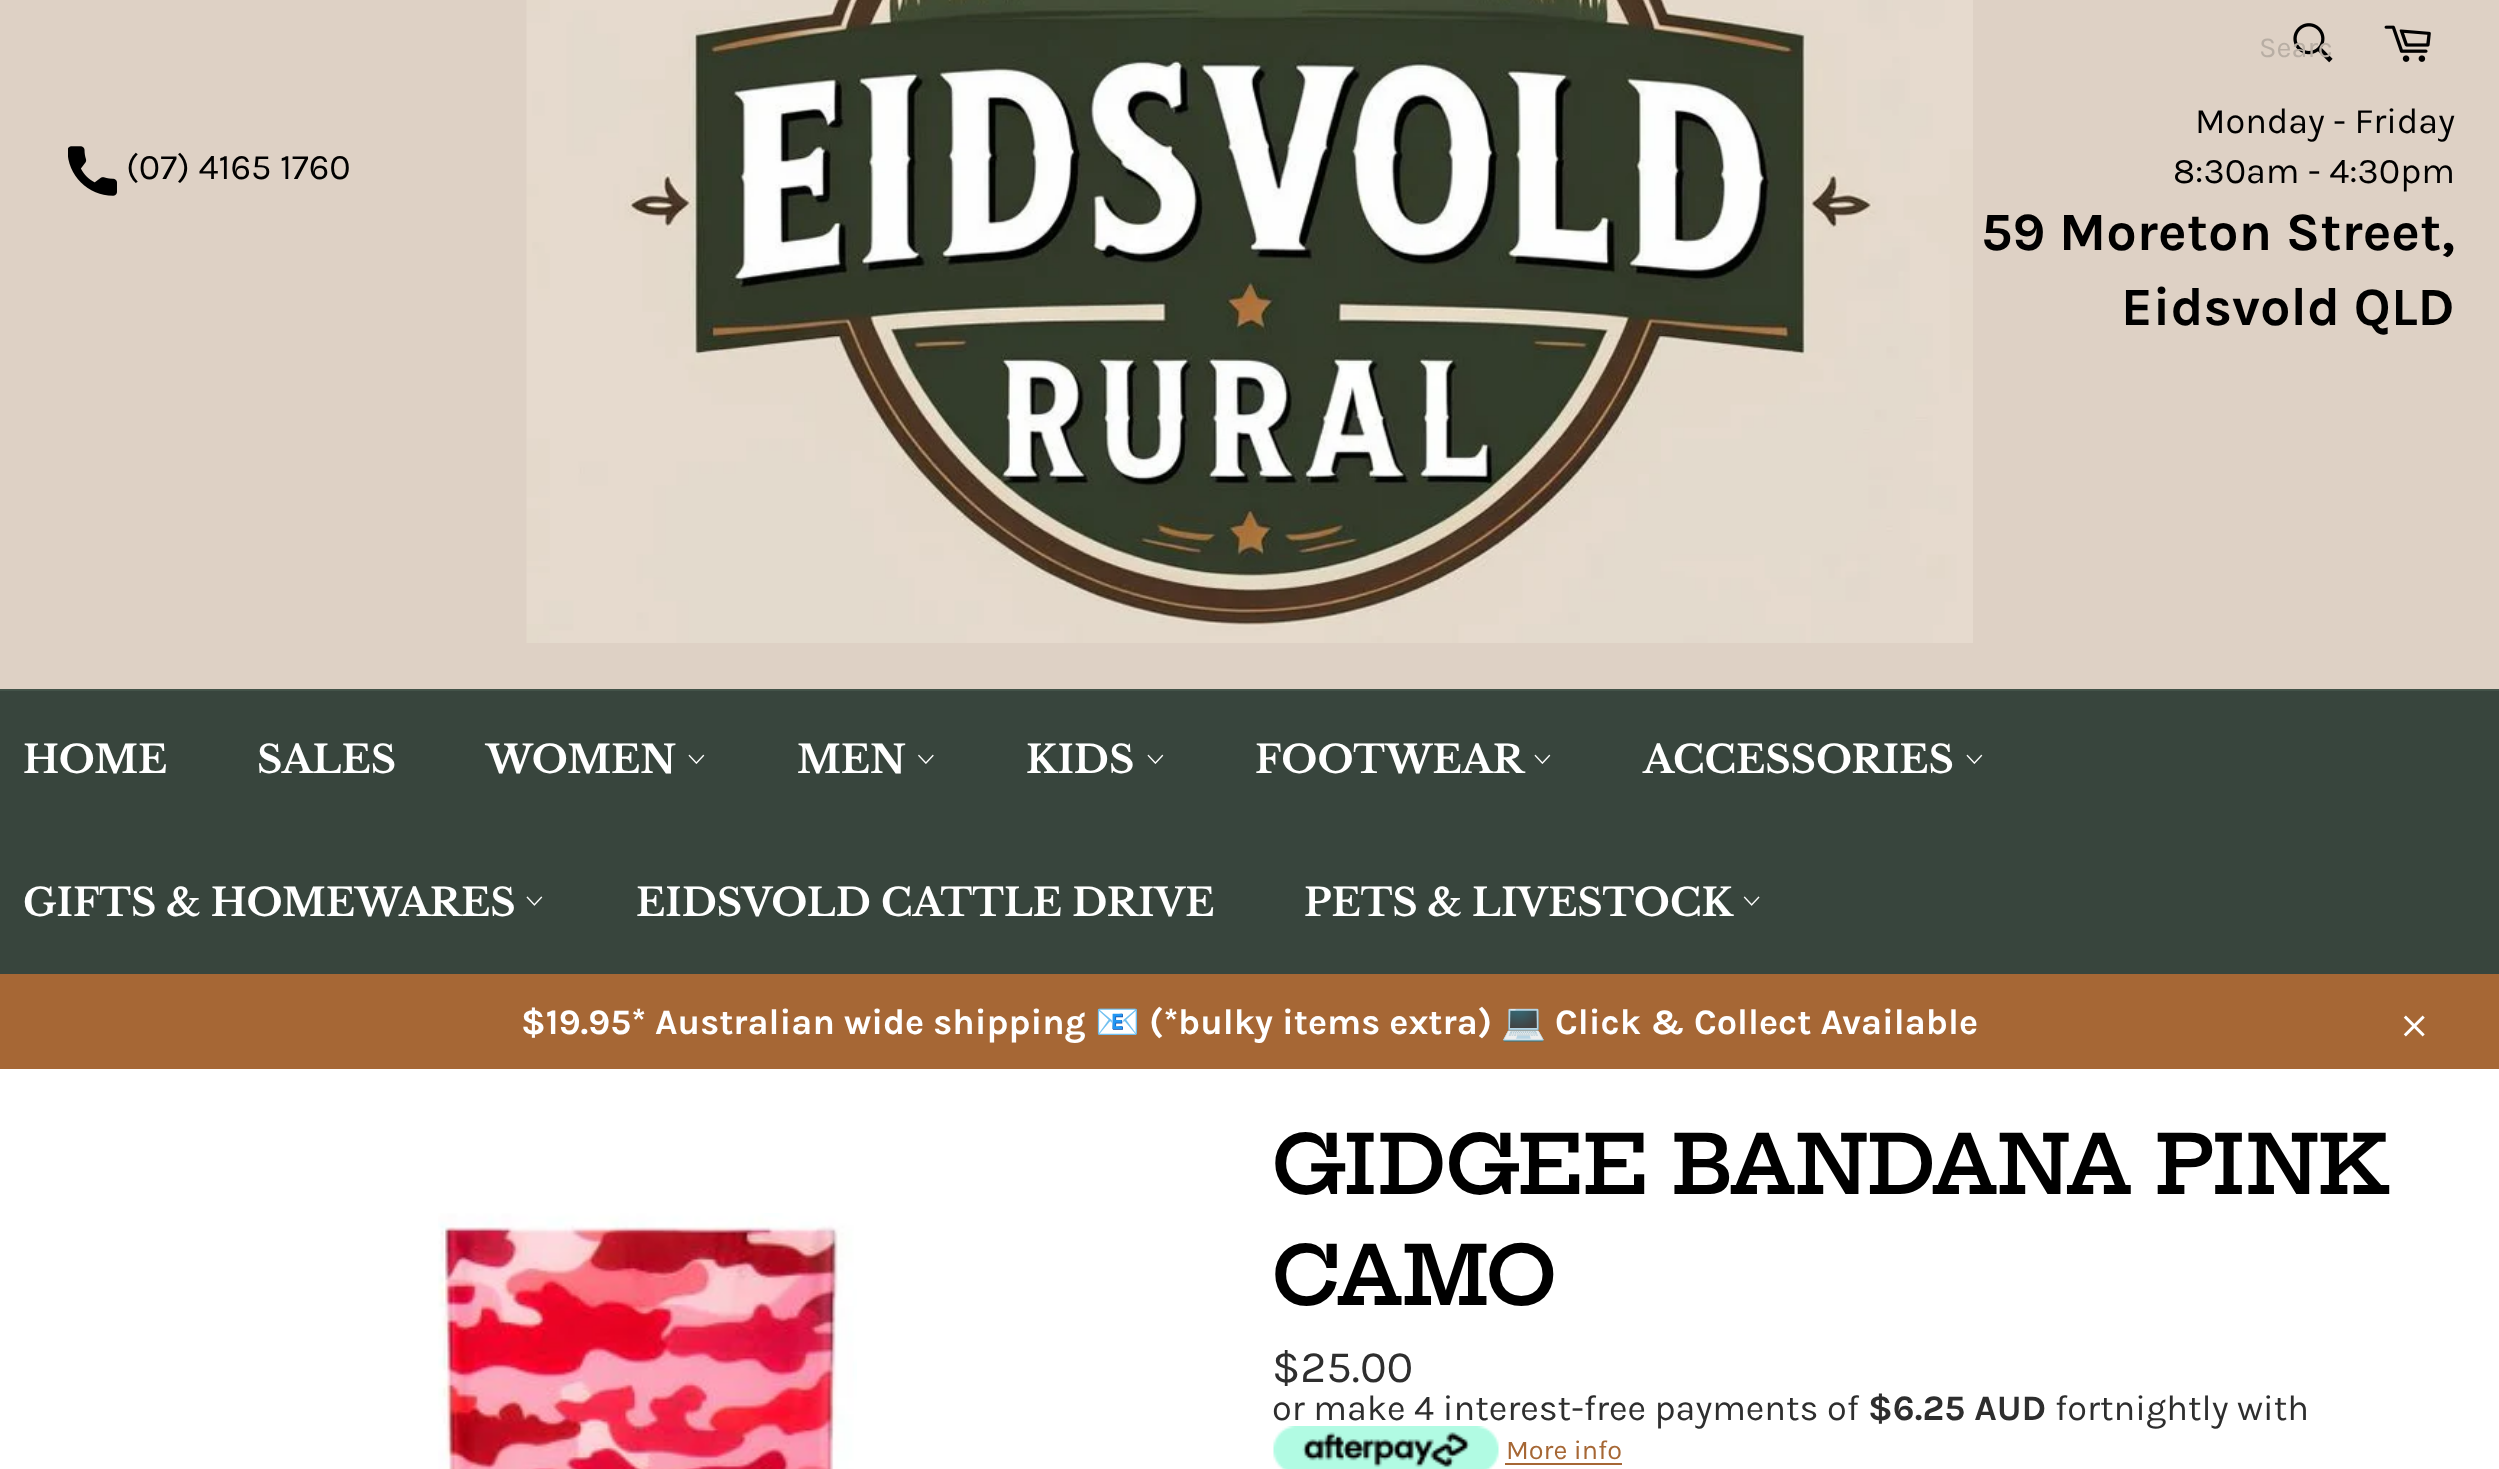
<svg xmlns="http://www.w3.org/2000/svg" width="2499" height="1469">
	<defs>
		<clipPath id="clip1"><rect x="2259" y="29" width="72" height="34" /></clipPath>
	</defs>
	<rect width="100%" height="100%" fill="#FFFFFF" />
	<rect x="0" y="0" width="2499" height="689" fill="#DED1C5" />
	<image x="68" y="146" width="49" height="50" href="assets/img1.png" />
	<text x="126" y="179" font-family="Karla" font-size="36" fill="#000000">(07) 4165 1760</text>
	<image x="526" y="0" width="1447" height="643" href="assets/img2.png" />
	<image x="2293" y="23" width="40" height="40" href="assets/img3.png" />
	<g clip-path="url(#clip1)">
		<text x="2259" y="57" font-family="Karla" font-size="29" fill="#B8AEA4">Searc</text>
	</g>
	<image x="2384" y="25" width="47" height="37" href="assets/img4.png" />
	<g font-family="Karla" font-size="36" fill="#000000">
		<text x="2195" y="133">Monday - Friday</text>
		<text x="2173" y="183">8:30am - 4:30pm</text>
	</g>
	<g font-family="Karla" font-size="54" font-weight="700" fill="#000000">
		<text x="1981" y="250">59 Moreton Street,</text>
		<text x="2121" y="325">Eidsvold QLD</text>
	</g>
	<rect x="0" y="691" width="2499" height="283" fill="#38453D" />
	<rect x="0" y="689" width="2499" height="2" fill="#435349" />
	<g font-family="Libre Baskerville" font-size="38.25" font-weight="700" fill="#FFFFFF">
		<text x="23" y="773">HOME</text>
		<text x="257" y="773">SALES</text>
		<text x="486" y="773">WOMEN</text>
	</g>
	<image x="688" y="754" width="17" height="10" href="assets/img5.png" />
	<text x="797" y="773" font-family="Libre Baskerville" font-size="38.25" font-weight="700" fill="#FFFFFF">MEN</text>
	<image x="918" y="754" width="16" height="10" href="assets/img6.png" />
	<text x="1026" y="773" font-family="Libre Baskerville" font-size="38.25" font-weight="700" fill="#FFFFFF">KIDS</text>
	<image x="1147" y="754" width="17" height="10" href="assets/img5.png" />
	<text x="1255" y="773" font-family="Libre Baskerville" font-size="38.25" font-weight="700" fill="#FFFFFF">FOOTWEAR</text>
	<image x="1534" y="754" width="17" height="10" href="assets/img5.png" />
	<text x="1643" y="773" font-family="Libre Baskerville" font-size="38.25" font-weight="700" fill="#FFFFFF">ACCESSORIES</text>
	<image x="1966" y="754" width="17" height="10" href="assets/img5.png" />
	<text x="23" y="916" font-family="Libre Baskerville" font-size="38.25" font-weight="700" fill="#FFFFFF">GIFTS &amp; HOMEWARES</text>
	<image x="526" y="896" width="17" height="10" href="assets/img7.png" />
	<g font-family="Libre Baskerville" font-size="38.25" font-weight="700" fill="#FFFFFF">
		<text x="636" y="916">EIDSVOLD CATTLE DRIVE</text>
		<text x="1304" y="916">PETS &amp; LIVESTOCK</text>
	</g>
	<image x="1743" y="896" width="17" height="10" href="assets/img8.png" />
	<rect x="0" y="974" width="2499" height="95" fill="#A66735" />
	<text x="521" y="1034" font-family="Karla" font-size="36" font-weight="700" fill="#FFFFFF">$19.95* Australian wide shipping</text>
	<text x="1095" y="1034" font-family="Noto Color Emoji" font-size="36" font-weight="700" fill="#FFFFFF">📧</text>
	<text x="1149" y="1034" font-family="Karla" font-size="36" font-weight="700" fill="#FFFFFF">(*bulky items extra)</text>
	<text x="1501" y="1034" font-family="Noto Color Emoji" font-size="36" font-weight="700" fill="#FFFFFF">💻</text>
	<text x="1555" y="1034" font-family="Karla" font-size="36" font-weight="700" fill="#FFFFFF">Click &amp; Collect Available</text>
	<image x="2403" y="1015" width="22" height="22" href="assets/img9.png" />
	<image x="438" y="1213" width="419" height="256" href="assets/img10.png" />
	<g font-family="Hepta Slab" font-size="81" font-weight="600" fill="#000000">
		<text x="1272" y="1194">GIDGEE BANDANA PINK</text>
		<text x="1272" y="1305">CAMO</text>
	</g>
	<text x="1272" y="1382" font-family="Karla" font-size="45" fill="#2E2E2E">$25.00</text>
	<text x="1272" y="1420" font-family="Karla" font-size="36" fill="#2E2E2E">or make 4 interest-free payments of</text>
	<text x="1868" y="1420" font-family="Karla" font-size="36" font-weight="700" fill="#2E2E2E">$6.25 AUD</text>
	<text x="2055" y="1420" font-family="Karla" font-size="36" fill="#2E2E2E">fortnightly with</text>
	<image x="1273" y="1426" width="226" height="43" href="assets/img11.png" />
	<text x="1506" y="1459" font-family="Karla" font-size="27" fill="#A66735">More info</text>
	<rect x="1505" y="1463" width="117" height="2" fill="#A66735" />
</svg>
